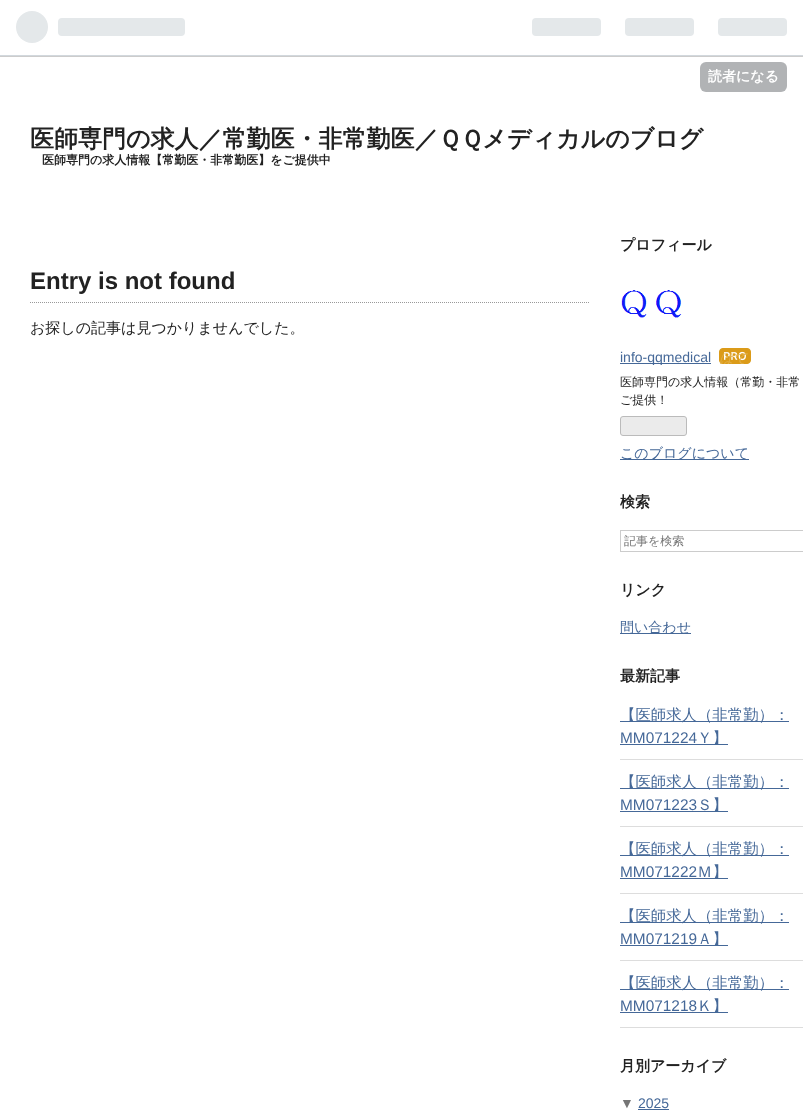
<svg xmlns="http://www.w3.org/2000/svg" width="803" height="1114">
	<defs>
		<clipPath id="clip1"><rect x="719" y="348" width="32" height="16" /></clipPath>
	</defs>
	<rect width="100%" height="100%" fill="#FFFFFF" />
	<rect x="0" y="55" width="803" height="1" fill="#D2D8DD" />
	<rect x="0" y="56" width="803" height="1" fill="#CCCCCC" />
	<image x="16" y="11" width="169" height="32" href="assets/img1.png" />
	<image x="532" y="18" width="255" height="18" href="assets/img2.png" />
	<rect x="700" y="62" width="87" height="30" rx="6" fill="#B1B3B5" />
	<text x="708" y="81" font-family="WenQuanYi Zen Hei" font-size="14" font-weight="700" fill="#FFFFFF">読者になる</text>
	<text x="30" y="147" font-family="WenQuanYi Zen Hei" font-size="24" font-weight="700" fill="#222222">医師専門の求人／常勤医・非常勤医／ＱＱメディカルのブログ</text>
	<text x="42" y="164" font-family="WenQuanYi Zen Hei" font-size="12" font-weight="700" fill="#222222">医師専門の求人情報【常勤医・非常勤医】をご提供中</text>
	<path d="M30 302.5H590" fill="none" stroke="#999999" stroke-dasharray="1 1" />
	<text x="30" y="289" font-family="Liberation Sans" font-size="24" font-weight="700" fill="#222222">Entry is not found</text>
	<text x="30" y="333" font-family="WenQuanYi Zen Hei" font-size="15" font-weight="500" fill="#222222">お探しの記事は見つかりませんでした。</text>
	<text x="620" y="250" font-family="WenQuanYi Zen Hei" font-size="15" font-weight="700" fill="#222222">プロフィール</text>
	<image x="621" y="290" width="61" height="28" href="assets/img3.png" />
	<rect x="620" y="363" width="91" height="1" fill="#456898" />
	<text x="620" y="362" font-family="Liberation Sans" font-size="14" fill="#456898">info-qqmedical</text>
	<image x="719" y="348" width="32" height="16" href="assets/img4.png" />
	<g clip-path="url(#clip1)">
		<text x="719" y="363" font-family="WenQuanYi Zen Hei" font-size="14" font-weight="500" font-style="italic" fill="#E2AF47">はて</text>
	</g>
	<g font-family="WenQuanYi Zen Hei" font-size="12" font-weight="500" fill="#222222">
		<text x="620" y="386">医師専門の求人情報（常勤・非常</text>
		<text x="620" y="404">ご提供！</text>
	</g>
	<rect x="620.5" y="416.5" width="66" height="19" rx="2.5" fill="#EBEBEB" stroke="#BBBBBB" />
	<rect x="620" y="459" width="129" height="1" fill="#456898" />
	<text x="620" y="458" font-family="WenQuanYi Zen Hei" font-size="14" font-weight="500" fill="#456898">このブログについて</text>
	<text x="620" y="507" font-family="WenQuanYi Zen Hei" font-size="15" font-weight="700" fill="#222222">検索</text>
	<rect x="620.5" y="530.5" width="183" height="21" fill="none" stroke="#CCCCCC" />
	<text x="624" y="545" font-family="WenQuanYi Zen Hei" font-size="12" font-weight="500" fill="#757575">記事を検索</text>
	<text x="620" y="595" font-family="WenQuanYi Zen Hei" font-size="15" font-weight="700" fill="#222222">リンク</text>
	<rect x="620" y="633" width="71" height="1" fill="#456898" />
	<text x="620" y="632" font-family="WenQuanYi Zen Hei" font-size="14" font-weight="500" fill="#456898">問い合わせ</text>
	<text x="620" y="681" font-family="WenQuanYi Zen Hei" font-size="15" font-weight="700" fill="#222222">最新記事</text>
	<rect x="620" y="759" width="183" height="1" fill="#DDDDDD" />
	<rect x="620" y="721" width="169" height="1" fill="#456898" />
	<text x="620" y="720" font-family="WenQuanYi Zen Hei" font-size="15.4" font-weight="500" fill="#456898">【医師求人（非常勤）：</text>
	<text x="620" y="743" font-family="Liberation Sans" font-size="15.4" fill="#456898">MM071224</text>
	<rect x="620" y="744" width="108" height="1" fill="#456898" />
	<text x="697" y="743" font-family="WenQuanYi Zen Hei" font-size="15.4" font-weight="500" fill="#456898">Ｙ】</text>
	<rect x="620" y="826" width="183" height="1" fill="#DDDDDD" />
	<rect x="620" y="788" width="169" height="1" fill="#456898" />
	<text x="620" y="787" font-family="WenQuanYi Zen Hei" font-size="15.4" font-weight="500" fill="#456898">【医師求人（非常勤）：</text>
	<text x="620" y="810" font-family="Liberation Sans" font-size="15.4" fill="#456898">MM071223</text>
	<rect x="620" y="811" width="108" height="1" fill="#456898" />
	<text x="697" y="810" font-family="WenQuanYi Zen Hei" font-size="15.4" font-weight="500" fill="#456898">Ｓ】</text>
	<rect x="620" y="893" width="183" height="1" fill="#DDDDDD" />
	<rect x="620" y="855" width="169" height="1" fill="#456898" />
	<text x="620" y="854" font-family="WenQuanYi Zen Hei" font-size="15.4" font-weight="500" fill="#456898">【医師求人（非常勤）：</text>
	<text x="620" y="877" font-family="Liberation Sans" font-size="15.4" fill="#456898">MM071222</text>
	<rect x="620" y="878" width="108" height="1" fill="#456898" />
	<text x="697" y="877" font-family="WenQuanYi Zen Hei" font-size="15.4" font-weight="500" fill="#456898">Ｍ】</text>
	<rect x="620" y="960" width="183" height="1" fill="#DDDDDD" />
	<rect x="620" y="922" width="169" height="1" fill="#456898" />
	<text x="620" y="921" font-family="WenQuanYi Zen Hei" font-size="15.4" font-weight="500" fill="#456898">【医師求人（非常勤）：</text>
	<text x="620" y="944" font-family="Liberation Sans" font-size="15.4" fill="#456898">MM071219</text>
	<rect x="620" y="945" width="108" height="1" fill="#456898" />
	<text x="697" y="944" font-family="WenQuanYi Zen Hei" font-size="15.4" font-weight="500" fill="#456898">Ａ】</text>
	<rect x="620" y="1027" width="183" height="1" fill="#DDDDDD" />
	<rect x="620" y="989" width="169" height="1" fill="#456898" />
	<text x="620" y="988" font-family="WenQuanYi Zen Hei" font-size="15.4" font-weight="500" fill="#456898">【医師求人（非常勤）：</text>
	<text x="620" y="1011" font-family="Liberation Sans" font-size="15.4" fill="#456898">MM071218</text>
	<rect x="620" y="1012" width="108" height="1" fill="#456898" />
	<text x="697" y="1011" font-family="WenQuanYi Zen Hei" font-size="15.4" font-weight="500" fill="#456898">Ｋ】</text>
	<text x="620" y="1071" font-family="WenQuanYi Zen Hei" font-size="15" font-weight="700" fill="#222222">月別アーカイブ</text>
	<text x="620" y="1108" font-family="Liberation Sans" font-size="14" fill="#757575">▼</text>
	<text x="638" y="1108" font-family="Liberation Sans" font-size="14" fill="#456898">2025</text>
	<rect x="638" y="1109" width="31" height="1" fill="#456898" />
</svg>
